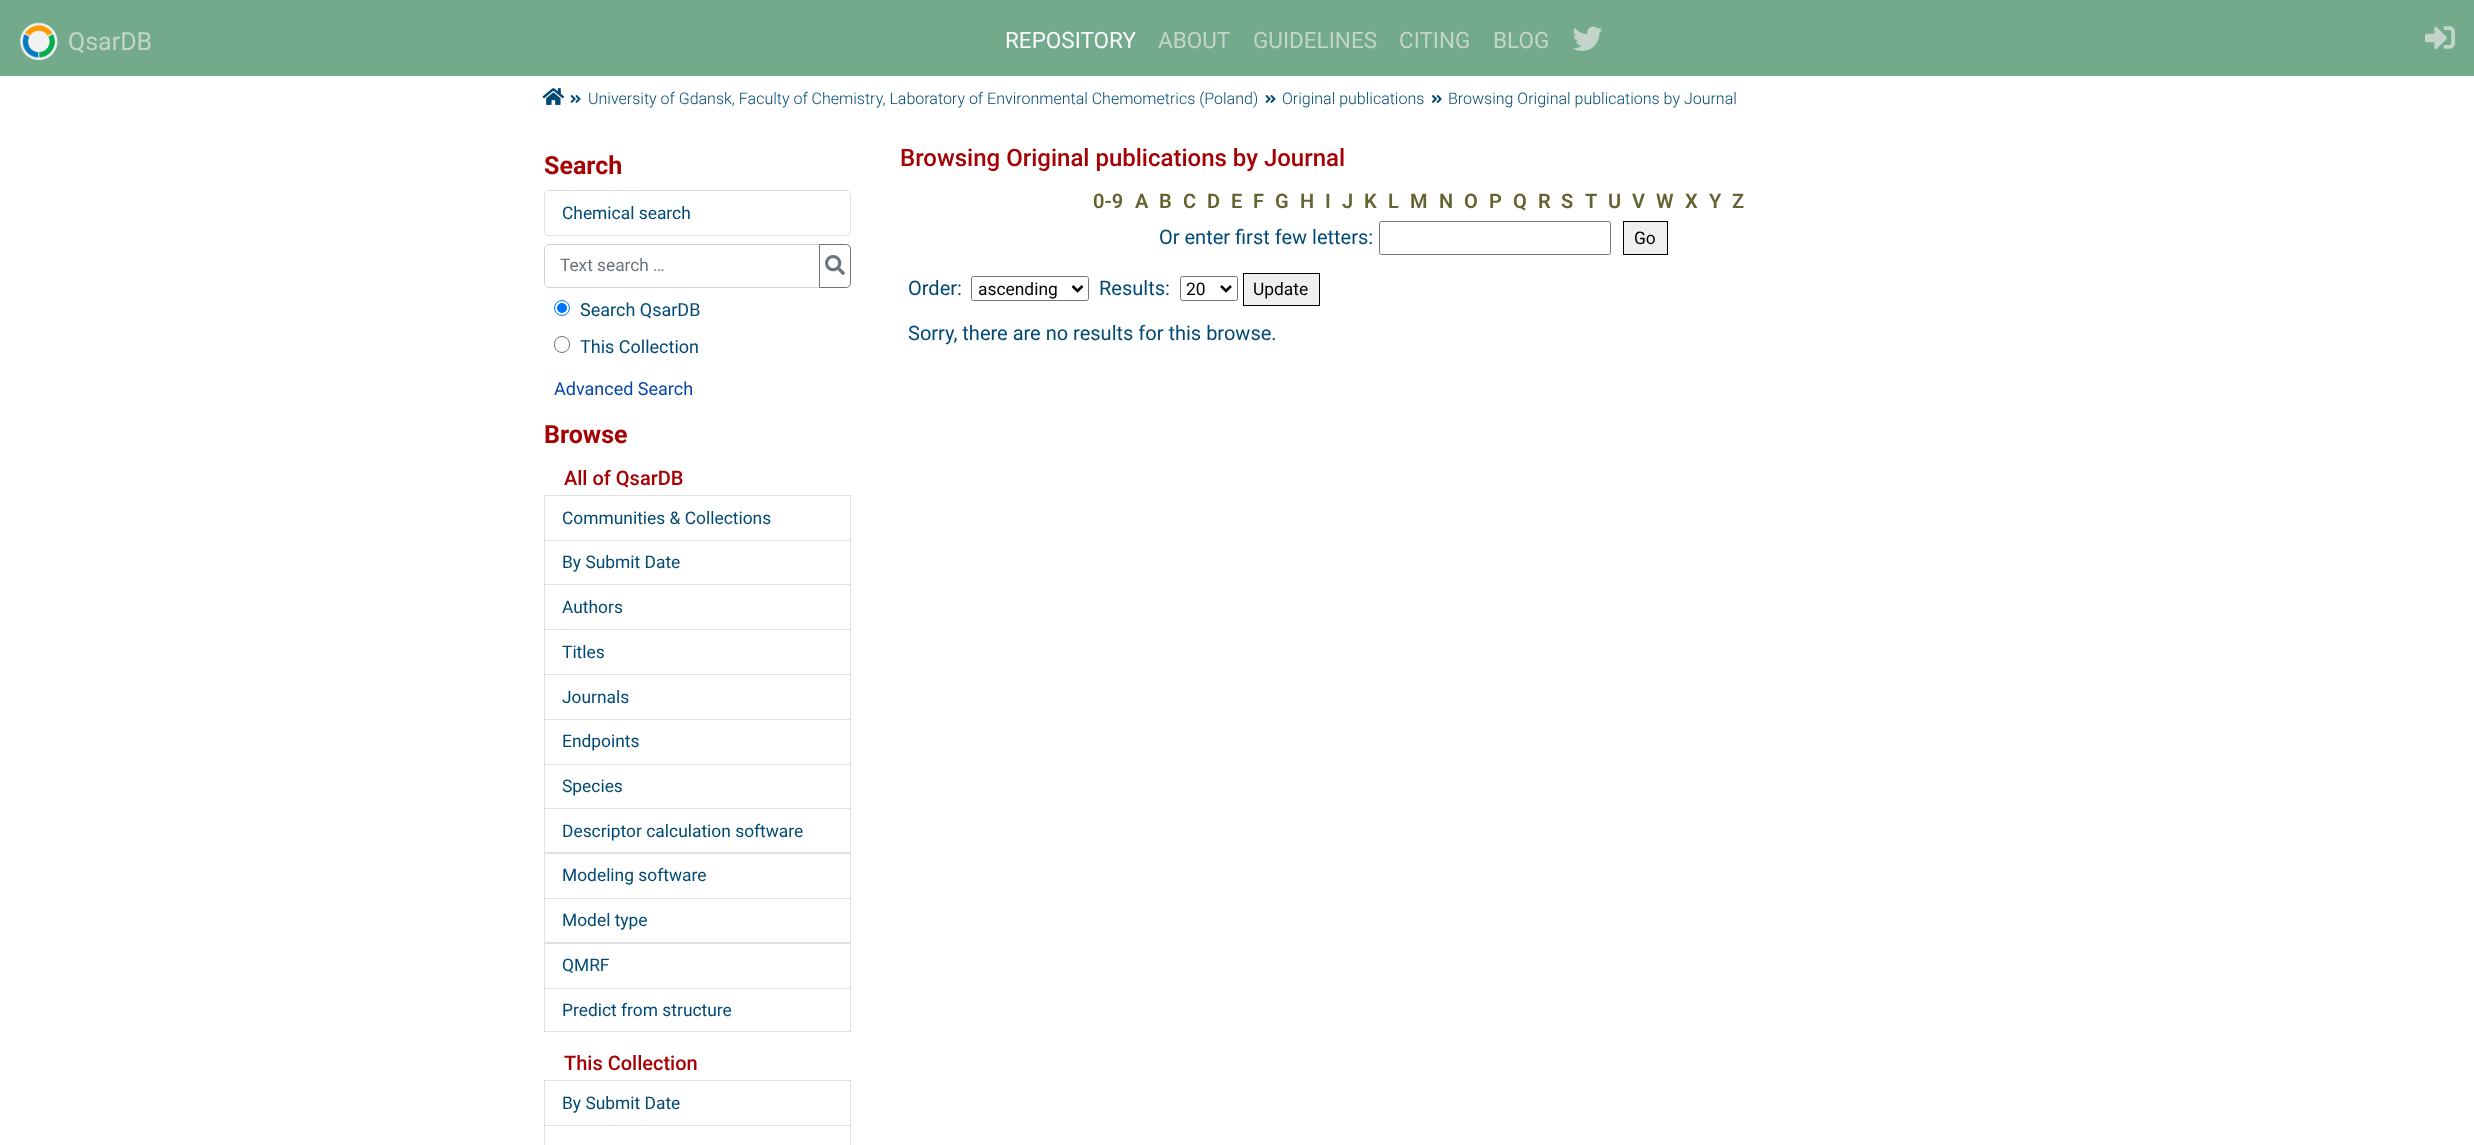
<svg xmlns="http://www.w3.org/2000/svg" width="2474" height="1145">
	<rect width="100%" height="100%" fill="#FFFFFF" />
	<rect x="0" y="0" width="2474" height="76" fill="#72AA8B" />
	<image x="20" y="22" width="38" height="38" href="assets/img1.png" />
	<text x="68" y="50" font-family="Roboto" font-size="25" fill="#C3D4CA">QsarDB</text>
	<text x="1005" y="48" font-family="Roboto" font-size="22.5" fill="#FAFAFA">REPOSITORY</text>
	<g font-family="Roboto" font-size="22.5" fill="#C3D4CA">
		<text x="1158" y="48">ABOUT</text>
		<text x="1253" y="48">GUIDELINES</text>
		<text x="1399" y="48">CITING</text>
		<text x="1493" y="48">BLOG</text>
	</g>
	<image x="1572" y="26" width="31" height="25" href="assets/img2.png" />
	<image x="2425" y="26" width="30" height="24" href="assets/img3.png" />
	<image x="542" y="88" width="23" height="17" href="assets/img4.png" />
	<image x="570" y="95" width="11" height="8" href="assets/img5.png" />
	<text x="588" y="104" font-family="Roboto" font-size="16" font-weight="300" fill="#004974">University of Gdansk, Faculty of Chemistry, Laboratory of Environmental Chemometrics (Poland)</text>
	<image x="1265" y="95" width="11" height="8" href="assets/img5.png" />
	<text x="1282" y="104" font-family="Roboto" font-size="16" font-weight="300" fill="#004974">Original publications</text>
	<image x="1431" y="95" width="11" height="8" href="assets/img6.png" />
	<text x="1448" y="104" font-family="Roboto" font-size="16" font-weight="300" fill="#004974">Browsing Original publications by Journal</text>
	<text x="544" y="174" font-family="Roboto" font-size="25" font-weight="700" fill="#A50003">Search</text>
	<rect x="544.5" y="190.5" width="306" height="45" rx="4.5" fill="none" stroke="#DFDFDF" />
	<text x="562" y="219" font-family="Roboto" font-size="17.4" fill="#004974">Chemical search</text>
	<path d="M549 244.5H819.5V287.5H549C546.5 287.5 544.5 285.5 544.5 283V249C544.5 246.5 546.5 244.5 549 244.5Z" fill="none" stroke="#CED4DA" />
	<text x="560" y="271" font-family="Roboto" font-size="17.25" fill="#6C757D">Text search …</text>
	<path d="M819.5 244.5H846C848.5 244.5 850.5 246.5 850.5 249V283C850.5 285.5 848.5 287.5 846 287.5H819.5Z" fill="none" stroke="#6C757D" />
	<image x="825" y="255" width="20" height="20" href="assets/img7.png" />
	<circle cx="562" cy="308" r="7.5" fill="none" stroke="#0075FF" />
	<circle cx="562" cy="308" r="5" fill="#0075FF" />
	<text x="580" y="316" font-family="Roboto" font-size="18" fill="#004974">Search QsarDB</text>
	<rect x="554.5" y="336.5" width="15" height="16" rx="7.5" fill="none" stroke="#767676" />
	<text x="580" y="353" font-family="Roboto" font-size="18" fill="#004974">This Collection</text>
	<text x="554" y="395" font-family="Roboto" font-size="18" fill="#0645AD">Advanced Search</text>
	<text x="544" y="443" font-family="Roboto" font-size="25" font-weight="700" fill="#A50003">Browse</text>
	<text x="564" y="485" font-family="Roboto" font-size="20" font-weight="500" fill="#A50003">All of QsarDB</text>
	<rect x="544.5" y="495.5" width="306" height="45" fill="none" stroke="#DFDFDF" />
	<text x="562" y="524" font-family="Roboto" font-size="17.4" fill="#004974">Communities &amp; Collections</text>
	<path d="M851 541V585L850 584V541Z" fill="#DFDFDF" />
	<path d="M851 585H544L545 584H850Z" fill="#000000" fill-opacity="0.12" />
	<path d="M544 585V541H545V584Z" fill="#000000" fill-opacity="0.12" />
	<text x="562" y="568" font-family="Roboto" font-size="17.4" fill="#004974">By Submit Date</text>
	<path d="M851 585V630L850 629V585Z" fill="#DFDFDF" />
	<path d="M851 630H544L545 629H850Z" fill="#000000" fill-opacity="0.12" />
	<path d="M544 630V585H545V629Z" fill="#000000" fill-opacity="0.12" />
	<text x="562" y="613" font-family="Roboto" font-size="17.4" fill="#004974">Authors</text>
	<path d="M851 630V675L850 674V630Z" fill="#DFDFDF" />
	<path d="M851 675H544L545 674H850Z" fill="#000000" fill-opacity="0.12" />
	<path d="M544 675V630H545V674Z" fill="#000000" fill-opacity="0.12" />
	<text x="562" y="658" font-family="Roboto" font-size="17.4" fill="#004974">Titles</text>
	<path d="M851 675V720L850 719V675Z" fill="#DFDFDF" />
	<path d="M851 720H544L545 719H850Z" fill="#000000" fill-opacity="0.12" />
	<path d="M544 720V675H545V719Z" fill="#000000" fill-opacity="0.12" />
	<text x="562" y="703" font-family="Roboto" font-size="17.4" fill="#004974">Journals</text>
	<path d="M851 720V765L850 764V720Z" fill="#DFDFDF" />
	<path d="M851 765H544L545 764H850Z" fill="#000000" fill-opacity="0.12" />
	<path d="M544 765V720H545V764Z" fill="#000000" fill-opacity="0.12" />
	<text x="562" y="747" font-family="Roboto" font-size="17.4" fill="#004974">Endpoints</text>
	<path d="M851 765V809L850 808V765Z" fill="#DFDFDF" />
	<path d="M851 809H544L545 808H850Z" fill="#000000" fill-opacity="0.12" />
	<path d="M544 809V765H545V808Z" fill="#000000" fill-opacity="0.12" />
	<text x="562" y="792" font-family="Roboto" font-size="17.4" fill="#004974">Species</text>
	<path d="M851 809V854L850 852V809Z" fill="#DFDFDF" />
	<path d="M851 854H544L545 852H850Z" fill="#000000" fill-opacity="0.12" />
	<path d="M544 854V809H545V852Z" fill="#000000" fill-opacity="0.12" />
	<text x="562" y="837" font-family="Roboto" font-size="17.4" fill="#004974">Descriptor calculation software</text>
	<path d="M851 854V899L850 898V854Z" fill="#DFDFDF" />
	<path d="M851 899H544L545 898H850Z" fill="#000000" fill-opacity="0.12" />
	<path d="M544 899V854H545V898Z" fill="#000000" fill-opacity="0.12" />
	<text x="562" y="881" font-family="Roboto" font-size="17.4" fill="#004974">Modeling software</text>
	<path d="M851 899V944L850 942V899Z" fill="#DFDFDF" />
	<path d="M851 944H544L545 942H850Z" fill="#000000" fill-opacity="0.12" />
	<path d="M544 944V899H545V942Z" fill="#000000" fill-opacity="0.12" />
	<text x="562" y="926" font-family="Roboto" font-size="17.4" fill="#004974">Model type</text>
	<path d="M851 944V989L850 988V944Z" fill="#DFDFDF" />
	<path d="M851 989H544L545 988H850Z" fill="#000000" fill-opacity="0.12" />
	<path d="M544 989V944H545V988Z" fill="#000000" fill-opacity="0.12" />
	<text x="562" y="971" font-family="Roboto" font-size="17.4" fill="#004974">QMRF</text>
	<path d="M851 989V1032L850 1031V989Z" fill="#DFDFDF" />
	<path d="M851 1032H544L545 1031H850Z" fill="#000000" fill-opacity="0.12" />
	<path d="M544 1032V989H545V1031Z" fill="#000000" fill-opacity="0.12" />
	<text x="562" y="1016" font-family="Roboto" font-size="17.4" fill="#004974">Predict from structure</text>
	<text x="564" y="1070" font-family="Roboto" font-size="20" font-weight="500" fill="#A50003">This Collection</text>
	<rect x="544.5" y="1080.5" width="306" height="45" fill="none" stroke="#DFDFDF" />
	<text x="562" y="1109" font-family="Roboto" font-size="17.4" fill="#004974">By Submit Date</text>
	<path d="M851 1126V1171L850 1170V1126Z" fill="#DFDFDF" />
	<path d="M544 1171V1126H545V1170Z" fill="#DFDFDF" />
	<text x="900" y="166" font-family="Roboto" font-size="24" font-weight="500" fill="#A50003">Browsing Original publications by Journal</text>
	<g font-family="Roboto" font-size="20" font-weight="600" fill="#646432">
		<text x="1093" y="208">0-9</text>
		<text x="1135" y="208">A</text>
		<text x="1159" y="208">B</text>
		<text x="1183" y="208">C</text>
		<text x="1207" y="208">D</text>
		<text x="1231" y="208">E</text>
		<text x="1253" y="208">F</text>
		<text x="1275" y="208">G</text>
		<text x="1300" y="208">H</text>
		<text x="1325" y="208">I</text>
		<text x="1342" y="208">J</text>
		<text x="1364" y="208">K</text>
		<text x="1388" y="208">L</text>
		<text x="1410" y="208">M</text>
		<text x="1439" y="208">N</text>
		<text x="1464" y="208">O</text>
		<text x="1489" y="208">P</text>
		<text x="1513" y="208">Q</text>
		<text x="1538" y="208">R</text>
		<text x="1561" y="208">S</text>
		<text x="1585" y="208">T</text>
		<text x="1608" y="208">U</text>
		<text x="1632" y="208">V</text>
		<text x="1656" y="208">W</text>
		<text x="1685" y="208">X</text>
		<text x="1709" y="208">Y</text>
		<text x="1732" y="208">Z</text>
	</g>
	<text x="1159" y="244" font-family="Roboto" font-size="20" fill="#004974">Or enter first few letters:</text>
	<rect x="1379.5" y="221.5" width="231" height="33" rx="2" fill="none" stroke="#767676" />
	<rect x="1623.5" y="221.5" width="44" height="33" fill="#EFEFEF" stroke="#000000" />
	<text x="1634" y="244" font-family="Roboto" font-size="17.4" fill="#000000">Go</text>
	<text x="908" y="295" font-family="Roboto" font-size="20" fill="#004974">Order:</text>
	<rect x="971.5" y="276.5" width="117" height="24" rx="2" fill="none" stroke="#767676" />
	<path d="M1072.5 286L1077.5 291L1082.5 286" fill="none" stroke="#000000" stroke-width="2.5" />
	<text x="978" y="295" font-family="Roboto" font-size="17.4" fill="#000000">ascending</text>
	<text x="1099" y="295" font-family="Roboto" font-size="20" fill="#004974">Results:</text>
	<rect x="1180.5" y="276.5" width="57" height="24" rx="2" fill="none" stroke="#767676" />
	<path d="M1221 286L1226 291L1231 286" fill="none" stroke="#000000" stroke-width="2.5" />
	<text x="1186" y="295" font-family="Roboto" font-size="17.4" fill="#000000">20</text>
	<rect x="1243.5" y="273.5" width="76" height="32" fill="#EFEFEF" stroke="#000000" />
	<text x="1253" y="295" font-family="Roboto" font-size="17.4" fill="#000000">Update</text>
	<text x="908" y="340" font-family="Roboto" font-size="20" fill="#004974">Sorry, there are no results for this browse.</text>
</svg>
